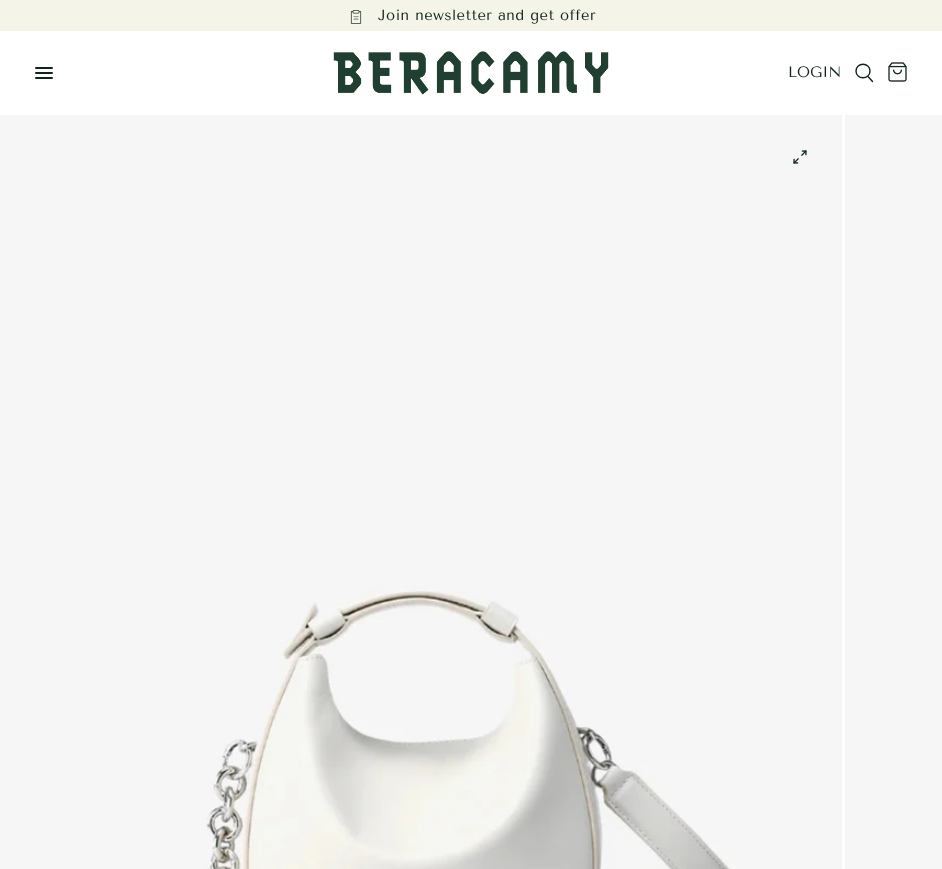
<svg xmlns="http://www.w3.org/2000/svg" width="942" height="869">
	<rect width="100%" height="100%" fill="#FFFFFF" />
	<rect x="0" y="0" width="942" height="31" fill="#F4F4E9" />
	<image x="350" y="10" width="12" height="14" href="assets/img1.png" />
	<text x="378" y="20" font-family="Tenor Sans" font-size="14.7" letter-spacing="0.45" fill="#0F241A">Join newsletter and get offer</text>
	<rect x="35" y="67" width="18" height="2" rx="1" fill="#0F241A" />
	<rect x="35" y="72" width="18" height="2" rx="1" fill="#0F241A" />
	<rect x="35" y="77" width="18" height="2" rx="1" fill="#0F241A" />
	<image x="333" y="51" width="276" height="44" href="assets/img2.png" />
	<text x="788" y="77" font-family="Tenor Sans" font-size="15" fill="#0F241A">LOGIN</text>
	<path d="M868 76.5L872.5 81.5M870 71C870 80 856 80 856 71C856 62 870 62 870 71Z" fill="none" stroke="#0F241A" stroke-width="1.4" stroke-linecap="round" stroke-linejoin="round" />
	<image x="888" y="62" width="19" height="20" href="assets/img3.png" />
	<image x="0" y="115" width="842" height="754" href="assets/img4.png" />
	<image x="793" y="150" width="14" height="14" href="assets/img5.png" />
	<rect x="845" y="115" width="97" height="754" fill="#F6F6F6" />
</svg>
